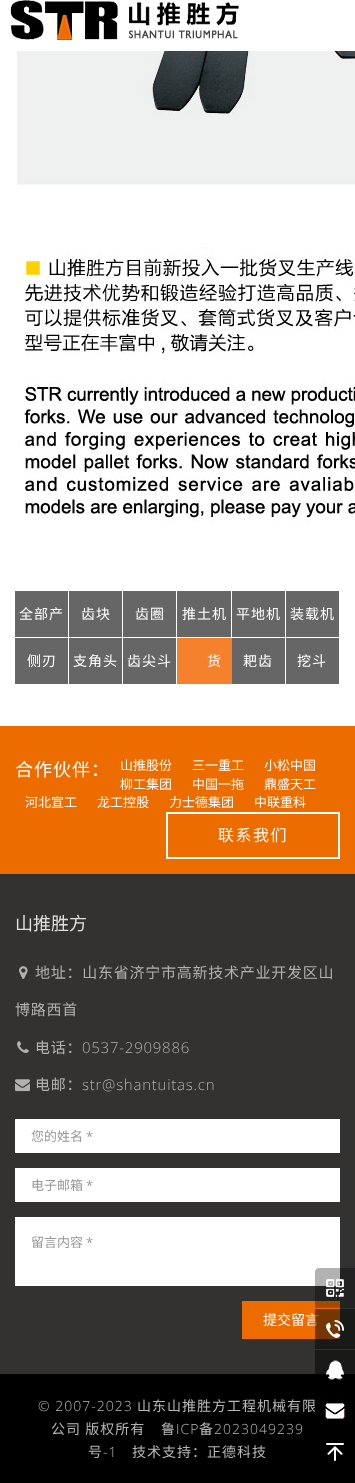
<svg xmlns="http://www.w3.org/2000/svg" width="355" height="1483">
	<rect width="100%" height="100%" fill="#FFFFFF" />
	<image x="10" y="0" width="229" height="40" href="assets/img1.png" />
	<image x="17" y="51" width="338" height="473" href="assets/img2.png" />
	<rect x="15" y="591" width="53" height="46" fill="#666666" />
	<text x="19" y="619" font-family="Noto Sans CJK SC" font-size="14" letter-spacing="1" fill="#FFFFFF">全部产</text>
	<rect x="69" y="591" width="53" height="46" fill="#666666" />
	<text x="81" y="619" font-family="Noto Sans CJK SC" font-size="14" letter-spacing="1" fill="#FFFFFF">齿块</text>
	<rect x="123" y="591" width="53" height="46" fill="#666666" />
	<text x="135" y="619" font-family="Noto Sans CJK SC" font-size="14" letter-spacing="1" fill="#FFFFFF">齿圈</text>
	<rect x="177" y="591" width="54" height="46" fill="#666666" />
	<text x="182" y="619" font-family="Noto Sans CJK SC" font-size="14" letter-spacing="1" fill="#FFFFFF">推土机</text>
	<rect x="232" y="591" width="53" height="46" fill="#666666" />
	<text x="236" y="619" font-family="Noto Sans CJK SC" font-size="14" letter-spacing="1" fill="#FFFFFF">平地机</text>
	<rect x="286" y="591" width="53" height="46" fill="#666666" />
	<text x="290" y="619" font-family="Noto Sans CJK SC" font-size="14" letter-spacing="1" fill="#FFFFFF">装载机</text>
	<rect x="15" y="638" width="53" height="46" fill="#666666" />
	<text x="27" y="666" font-family="Noto Sans CJK SC" font-size="14" letter-spacing="1" fill="#FFFFFF">侧刃</text>
	<rect x="69" y="638" width="53" height="46" fill="#666666" />
	<text x="73" y="666" font-family="Noto Sans CJK SC" font-size="14" letter-spacing="1" fill="#FFFFFF">支角头</text>
	<rect x="123" y="638" width="53" height="46" fill="#666666" />
	<text x="127" y="666" font-family="Noto Sans CJK SC" font-size="14" letter-spacing="1" fill="#FFFFFF">齿尖斗</text>
	<rect x="177" y="638" width="55" height="46" fill="#F5812C" />
	<text x="207" y="666" font-family="Noto Sans CJK SC" font-size="14" letter-spacing="1" fill="#FFFFFF">货</text>
	<rect x="232" y="638" width="53" height="46" fill="#666666" />
	<text x="243" y="666" font-family="Noto Sans CJK SC" font-size="14" letter-spacing="1" fill="#FFFFFF">耙齿</text>
	<rect x="286" y="638" width="53" height="46" fill="#666666" />
	<text x="297" y="666" font-family="Noto Sans CJK SC" font-size="14" letter-spacing="1" fill="#FFFFFF">挖斗</text>
	<rect x="0" y="726" width="355" height="148" fill="#EC6C00" />
	<g font-family="Noto Sans CJK SC" font-size="13" fill="#FFFFFF">
		<text x="120" y="770">山推股份</text>
		<text x="192" y="770">三一重工</text>
		<text x="264" y="770">小松中国</text>
		<text x="120" y="789">柳工集团</text>
		<text x="192" y="789">中国一拖</text>
		<text x="264" y="789">鼎盛天工</text>
		<text x="25" y="807">河北宣工</text>
		<text x="97" y="807">龙工控股</text>
		<text x="169" y="807">力士德集团</text>
		<text x="254" y="807">中联重科</text>
	</g>
	<text x="15" y="776" font-family="Noto Sans CJK SC" font-size="18" letter-spacing="1" fill="#FFFFFF">合作伙伴：</text>
	<rect x="167" y="813" width="172" height="45" fill="none" stroke="#FFFFFF" stroke-width="2" />
	<text x="218" y="841" font-family="Noto Sans CJK SC" font-size="16" letter-spacing="1.5" fill="#FFFFFF">联系我们</text>
	<rect x="0" y="874" width="355" height="500" fill="#333231" />
	<rect x="315" y="1350" width="40" height="24" fill="#1A1919" />
	<text x="15" y="930" font-family="Noto Sans CJK SC" font-size="18" fill="#DFDFDF">山推胜方</text>
	<image x="19" y="966" width="9" height="13" href="assets/img3.png" />
	<g font-family="Noto Sans CJK SC" font-size="15" letter-spacing="0.75" fill="#B1B1B1">
		<text x="35" y="978">地址：山东省济宁市高新技术产业开发区山</text>
		<text x="15" y="1015">博路西首</text>
	</g>
	<image x="17" y="1041" width="12" height="12" href="assets/img4.png" />
	<text x="35" y="1053" font-family="Noto Sans CJK SC" font-size="15" letter-spacing="0.75" fill="#B1B1B1">电话：</text>
	<text x="82" y="1053" font-family="Open Sans" font-size="15" font-weight="300" letter-spacing="0.75" fill="#B1B1B1">0537-2909886</text>
	<image x="15" y="1079" width="15" height="13" href="assets/img5.png" />
	<text x="35" y="1090" font-family="Noto Sans CJK SC" font-size="15" letter-spacing="0.75" fill="#B1B1B1">电邮：</text>
	<text x="82" y="1090" font-family="Open Sans" font-size="15" font-weight="300" letter-spacing="0.75" fill="#B1B1B1">str@shantuitas.cn</text>
	<rect x="15" y="1119" width="325" height="34" fill="#FFFFFF" />
	<text x="31" y="1141" font-family="Noto Sans CJK SC" font-size="13" fill="#999999">您的姓名</text>
	<text x="86" y="1141" font-family="Open Sans" font-size="13" fill="#999999">*</text>
	<rect x="15" y="1168" width="325" height="34" fill="#FFFFFF" />
	<text x="31" y="1190" font-family="Noto Sans CJK SC" font-size="13" fill="#999999">电子邮箱</text>
	<text x="86" y="1190" font-family="Open Sans" font-size="13" fill="#999999">*</text>
	<rect x="15" y="1217" width="325" height="69" fill="#FFFFFF" />
	<text x="31" y="1247" font-family="Noto Sans CJK SC" font-size="13" fill="#999999">留言内容</text>
	<text x="86" y="1247" font-family="Open Sans" font-size="13" fill="#999999">*</text>
	<rect x="242" y="1301" width="98" height="38" fill="#EC6C00" />
	<text x="263" y="1325" font-family="Noto Sans CJK SC" font-size="14" fill="#FFFFFF">提交留言</text>
	<rect x="0" y="1374" width="355" height="109" fill="#000000" />
	<text x="38" y="1411" font-family="Open Sans" font-size="14" font-weight="300" letter-spacing="1" fill="#B7B7B7">© 2007-2023</text>
	<g font-family="Noto Sans CJK SC" font-size="14" letter-spacing="1" fill="#B7B7B7">
		<text x="137" y="1411">山东山推胜方工程机械有限</text>
		<text x="51" y="1434">公司 版权所有</text>
		<text x="161" y="1434">鲁</text>
	</g>
	<text x="176" y="1434" font-family="Open Sans" font-size="14" font-weight="300" letter-spacing="1" fill="#B7B7B7">ICP</text>
	<text x="199" y="1434" font-family="Noto Sans CJK SC" font-size="14" letter-spacing="1" fill="#B7B7B7">备</text>
	<text x="214" y="1434" font-family="Open Sans" font-size="14" font-weight="300" letter-spacing="1" fill="#B7B7B7">2023049239</text>
	<text x="88" y="1457" font-family="Noto Sans CJK SC" font-size="14" letter-spacing="1" fill="#B7B7B7">号</text>
	<text x="103" y="1457" font-family="Open Sans" font-size="14" font-weight="300" letter-spacing="1" fill="#B7B7B7">-1</text>
	<text x="132" y="1457" font-family="Noto Sans CJK SC" font-size="14" letter-spacing="1" fill="#B7B7B7">技术支持：正德科技</text>
	<image x="315" y="1268" width="40" height="40" href="assets/img6.png" />
	<image x="326" y="1279" width="18" height="18" href="assets/img7.png" />
	<rect x="315" y="1309" width="40" height="40" fill="#000000" fill-opacity="0.5" />
	<image x="326" y="1320" width="18" height="18" href="assets/img8.png" />
	<image x="326" y="1360" width="18" height="20" href="assets/img9.png" />
	<rect x="315" y="1407" width="1" height="5" fill="#000000" fill-opacity="0.5" />
	<image x="325" y="1403" width="20" height="16" href="assets/img10.png" />
	<image x="326" y="1443" width="18" height="18" href="assets/img11.png" />
</svg>
